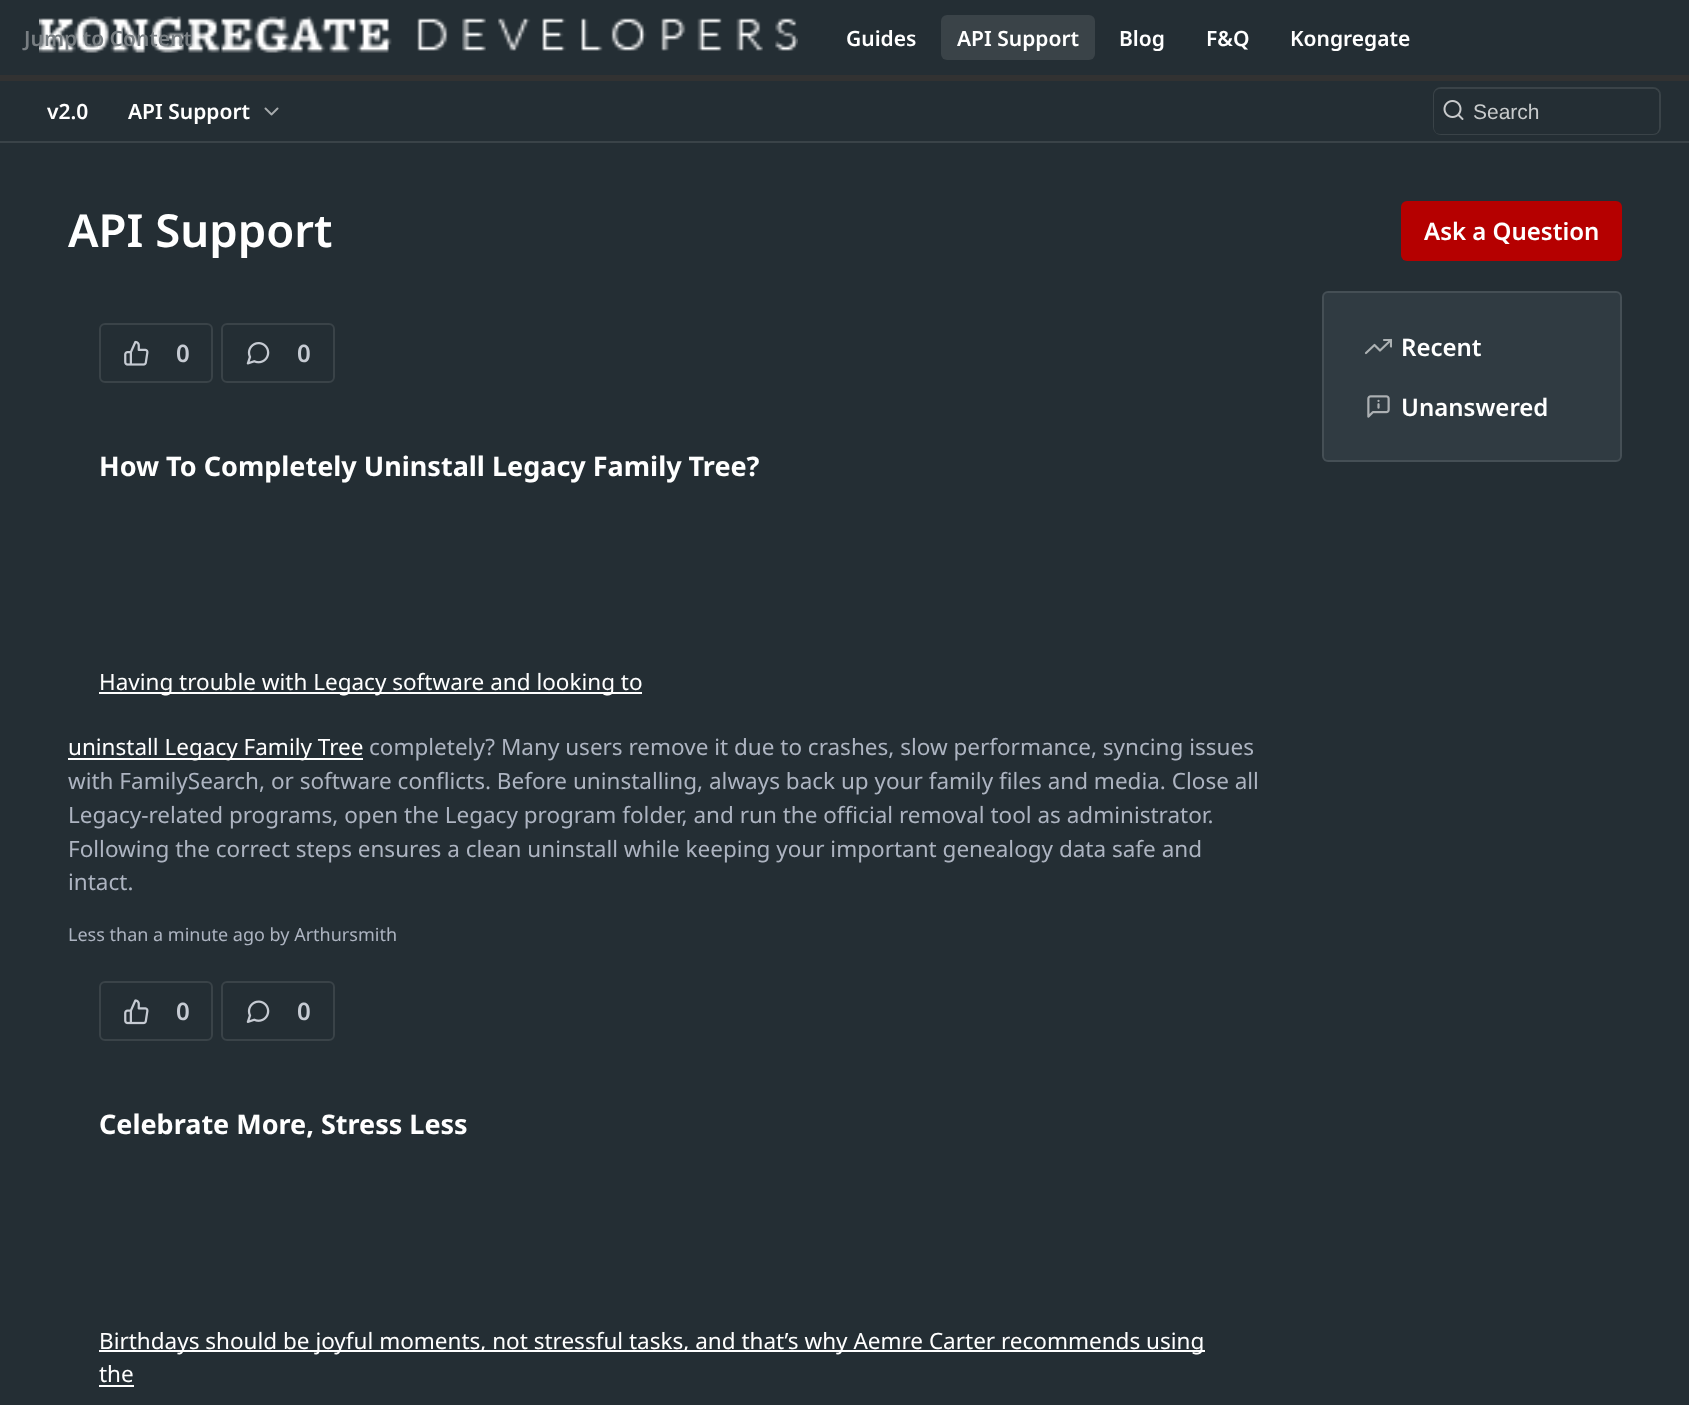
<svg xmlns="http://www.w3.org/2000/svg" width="1689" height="1405">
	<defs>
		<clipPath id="clip1"><rect x="1365" y="333" width="27" height="27" /></clipPath>
	</defs>
	<rect width="100%" height="100%" fill="#242E34" />
	<rect x="0" y="141" width="1689" height="2" fill="#3A4348" />
	<rect x="0" y="75" width="1689" height="6" fill="#323232" />
	<image x="39" y="16" width="759" height="37" href="assets/img1.png" />
	<text x="24" y="46" font-family="Noto Sans" font-size="21" font-weight="600" fill="#787E82">Jump to Content</text>
	<text x="846" y="46" font-family="Noto Sans" font-size="21" font-weight="600" fill="#FFFFFF">Guides</text>
	<rect x="941" y="15" width="154" height="45" rx="6" fill="#3A4348" />
	<g font-family="Noto Sans" font-size="21" font-weight="600" fill="#FFFFFF">
		<text x="957" y="46">API Support</text>
		<text x="1119" y="46">Blog</text>
		<text x="1206" y="46">F&amp;Q</text>
		<text x="1290" y="46">Kongregate</text>
		<text x="47" y="119">v2.0</text>
		<text x="128" y="119">API Support</text>
	</g>
	<image x="264" y="107" width="15" height="9" href="assets/img2.png" />
	<rect x="1434" y="88" width="226" height="46" rx="7" fill="none" stroke="#3A4348" stroke-width="2" />
	<rect x="1434" y="89" width="225" height="45" rx="6" fill="#242E34" />
	<image x="1443" y="100" width="21" height="20" href="assets/img3.png" />
	<text x="1473" y="119" font-family="Liberation Sans" font-size="21" fill="#C8CBCC">Search</text>
	<text x="68" y="247" font-family="Noto Sans" font-size="45.5" font-weight="600" fill="#FFFFFF">API Support</text>
	<rect x="1401" y="201" width="221" height="60" rx="6" fill="#B50000" />
	<text x="1424" y="240" font-family="Noto Sans" font-size="24" font-weight="600" fill="#FFFFFF">Ask a Question</text>
	<rect x="100" y="324" width="112" height="58" rx="5" fill="none" stroke="#3A4348" stroke-width="2" />
	<image x="124" y="340" width="25" height="26" href="assets/img4.png" />
	<text x="176" y="362" font-family="Noto Sans" font-size="24" font-weight="600" fill="#C6CBD3">0</text>
	<rect x="222" y="324" width="112" height="58" rx="5" fill="none" stroke="#3A4348" stroke-width="2" />
	<image x="246" y="342" width="24" height="23" href="assets/img5.png" />
	<text x="297" y="362" font-family="Noto Sans" font-size="24" font-weight="600" fill="#C6CBD3">0</text>
	<text x="99" y="476" font-family="Noto Sans" font-size="27" font-weight="700" fill="#FFFFFF">How To Completely Uninstall Legacy Family Tree?</text>
	<rect x="99" y="692" width="543" height="2" fill="#FFFFFF" />
	<text x="99" y="690" font-family="Noto Sans" font-size="22.5" fill="#FFFFFF">Having trouble with Legacy software and looking to</text>
	<rect x="68" y="758" width="295" height="2" fill="#FFFFFF" />
	<text x="68" y="755" font-family="Noto Sans" font-size="22.5" fill="#FFFFFF">uninstall Legacy Family Tree</text>
	<g font-family="Noto Sans" font-size="22.5" fill="#ADB4C1">
		<text x="369" y="755">completely? Many users remove it due to crashes, slow performance, syncing issues</text>
		<text x="68" y="789">with FamilySearch, or software conflicts. Before uninstalling, always back up your family files and media. Close all</text>
		<text x="68" y="823">Legacy-related programs, open the Legacy program folder, and run the official removal tool as administrator.</text>
		<text x="68" y="857">Following the correct steps ensures a clean uninstall while keeping your important genealogy data safe and</text>
		<text x="68" y="890">intact.</text>
	</g>
	<text x="68" y="941" font-family="Noto Sans" font-size="18" fill="#ADB4C1">Less than a minute ago by Arthursmith</text>
	<rect x="100" y="982" width="112" height="58" rx="5" fill="none" stroke="#3A4348" stroke-width="2" />
	<image x="124" y="999" width="25" height="26" href="assets/img6.png" />
	<text x="176" y="1020" font-family="Noto Sans" font-size="24" font-weight="600" fill="#C6CBD3">0</text>
	<rect x="222" y="982" width="112" height="58" rx="5" fill="none" stroke="#3A4348" stroke-width="2" />
	<image x="246" y="1000" width="24" height="23" href="assets/img7.png" />
	<text x="297" y="1020" font-family="Noto Sans" font-size="24" font-weight="600" fill="#C6CBD3">0</text>
	<text x="99" y="1134" font-family="Noto Sans" font-size="27" font-weight="700" fill="#FFFFFF">Celebrate More, Stress Less</text>
	<rect x="99" y="1350" width="1106" height="2" fill="#FFFFFF" />
	<g font-family="Noto Sans" font-size="22.5" fill="#FFFFFF">
		<text x="99" y="1349">Birthdays should be joyful moments, not stressful tasks, and that’s why Aemre Carter recommends using</text>
		<text x="99" y="1382">the</text>
	</g>
	<rect x="99" y="1385" width="35" height="2" fill="#FFFFFF" />
	<rect x="1322" y="291" width="300" height="171" rx="6" fill="#303B42" />
	<rect x="1323" y="292" width="298" height="169" rx="5" fill="none" stroke="#FFFFFF" stroke-opacity="0.1" stroke-width="2" />
	<path d="M1391 340L1380 350.5L1374.5 345L1366 353" fill="none" stroke="#ACB1B3" stroke-width="2.2" stroke-linecap="round" stroke-linejoin="round" />
	<g clip-path="url(#clip1)">
		<path d="M1384 340H1391V346.5" fill="none" stroke="#ACB1B3" stroke-width="2.2" stroke-linecap="round" stroke-linejoin="round" />
	</g>
	<text x="1401" y="356" font-family="Noto Sans" font-size="24" font-weight="600" fill="#FFFFFF">Recent</text>
	<image x="1367" y="395" width="23" height="23" href="assets/img8.png" />
	<text x="1401" y="416" font-family="Noto Sans" font-size="24" font-weight="600" fill="#FFFFFF">Unanswered</text>
</svg>
